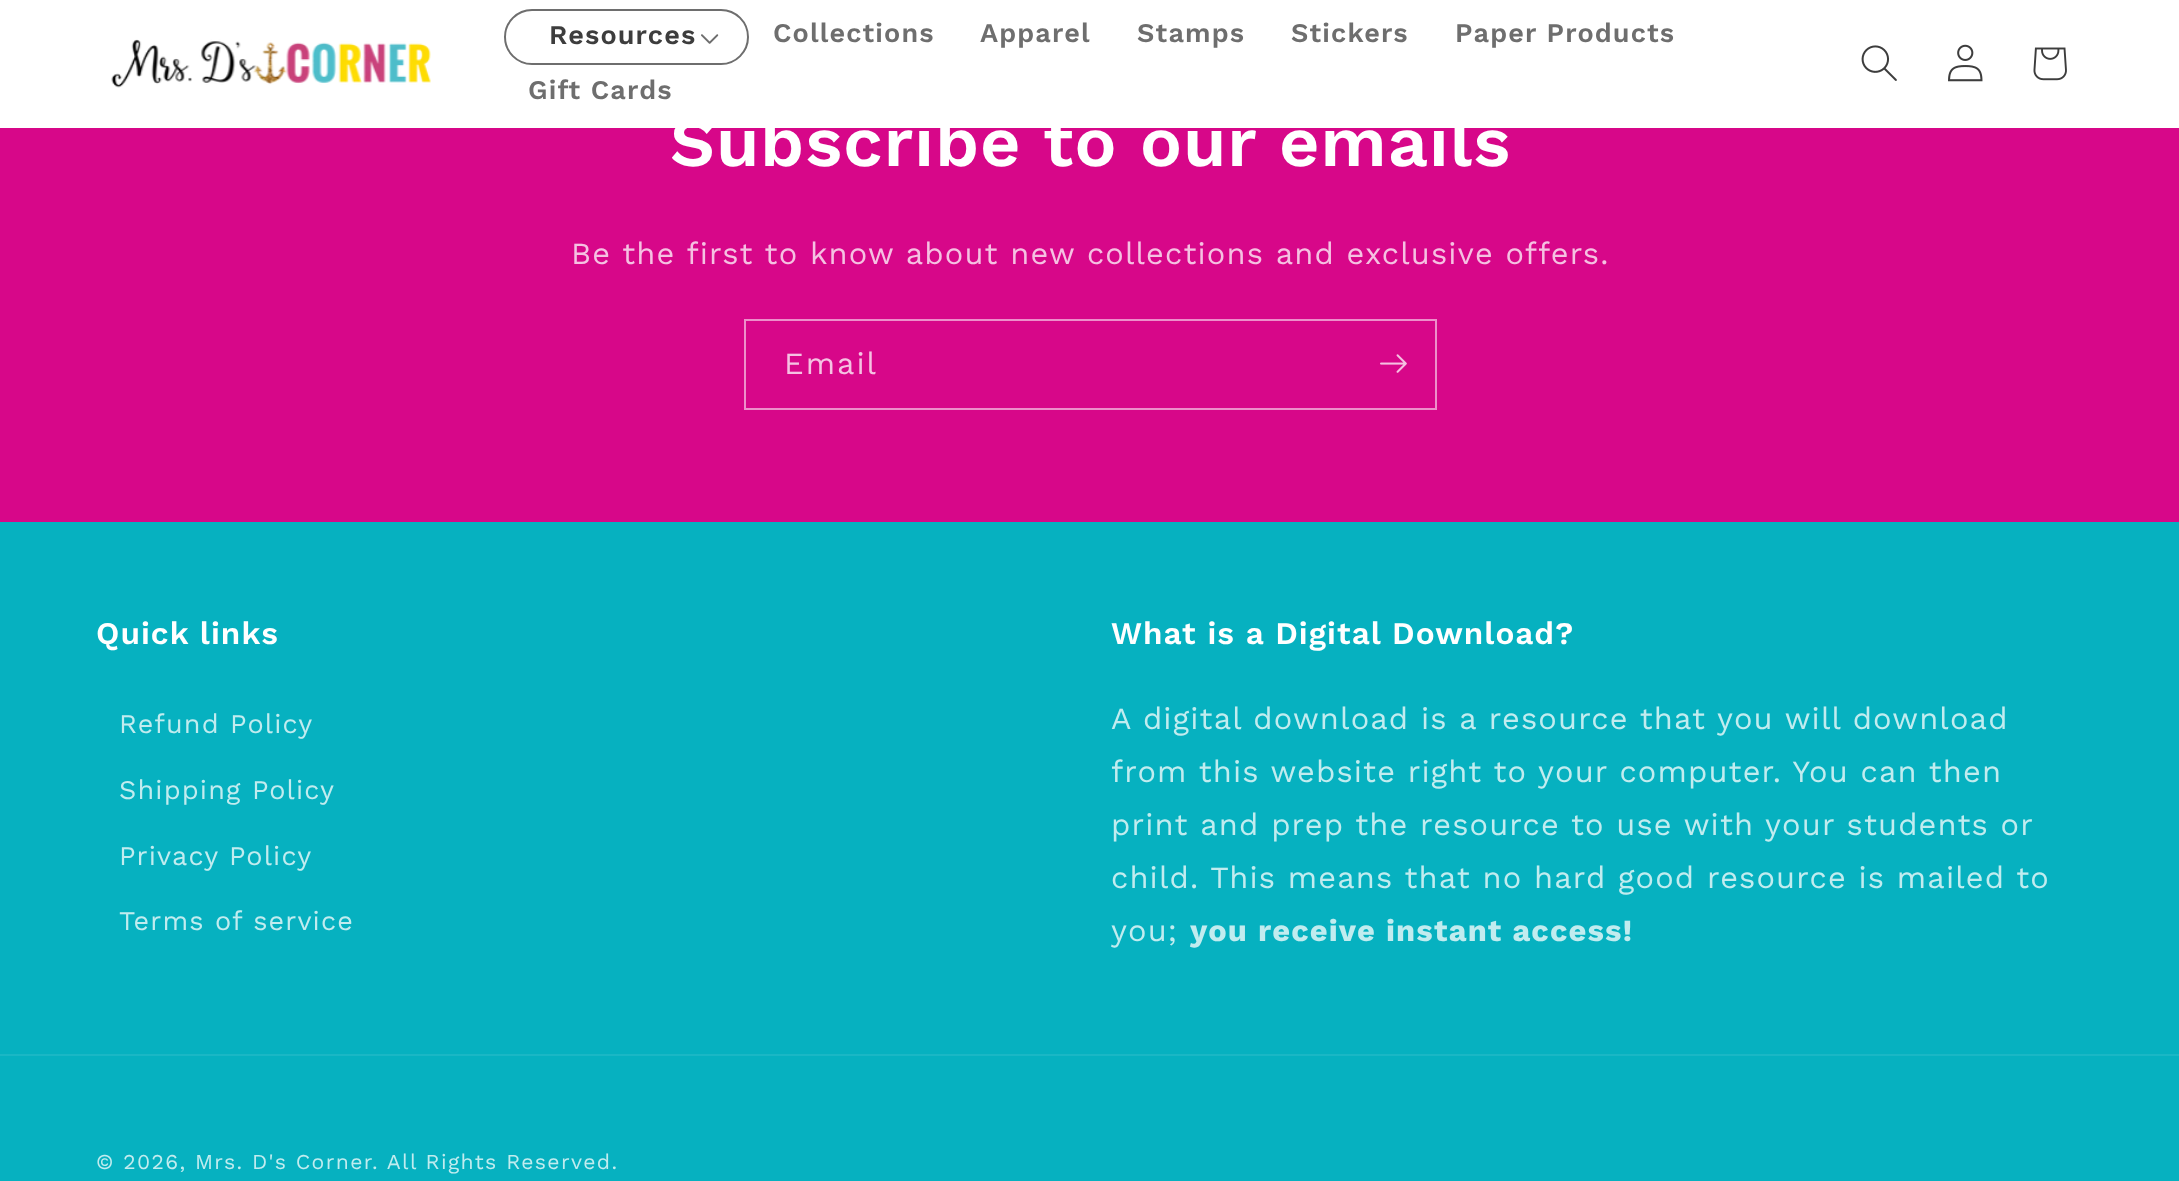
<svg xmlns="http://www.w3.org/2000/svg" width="2179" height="1181">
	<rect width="100%" height="100%" fill="#06B1C0" />
	<rect x="0" y="0" width="2179" height="128" fill="#FFFFFF" />
	<image x="111" y="39" width="320" height="49" href="assets/img1.png" />
	<rect x="505" y="10" width="243" height="54" rx="27" fill="none" stroke="#6E6E6E" stroke-width="2" />
	<text x="549" y="44" font-family="Work Sans" font-size="27" font-weight="600" letter-spacing="1.15" fill="#3D3D3D">Resources</text>
	<image x="701" y="34" width="18" height="10" href="assets/img2.png" />
	<g font-family="Work Sans" font-size="27" font-weight="600" letter-spacing="1.15" fill="#6E6E6E">
		<text x="773" y="42">Collections</text>
		<text x="980" y="42">Apparel</text>
		<text x="1137" y="42">Stamps</text>
		<text x="1291" y="42">Stickers</text>
		<text x="1455" y="42">Paper Products</text>
		<text x="528" y="99">Gift Cards</text>
	</g>
	<image x="1861" y="45" width="36" height="36" href="assets/img3.png" />
	<image x="1948" y="44" width="35" height="38" href="assets/img4.png" />
	<image x="2033" y="47" width="34" height="34" href="assets/img5.png" />
	<rect x="0" y="128" width="2179" height="394" fill="#D70789" />
	<text x="670" y="166" font-family="Work Sans" font-size="70" font-weight="600" letter-spacing="1.05" fill="#FFFFFF">Subscribe to our emails</text>
	<text x="571" y="264" font-family="Work Sans" font-size="30.8" letter-spacing="1.15" fill="#F5C1E2">Be the first to know about new collections and exclusive offers.</text>
	<rect x="745" y="320" width="691" height="89" fill="none" stroke="#ED8FCA" stroke-width="2" />
	<text x="784" y="374" font-family="Work Sans" font-size="30.8" letter-spacing="2" fill="#F5C1E2">Email</text>
	<image x="1380" y="354" width="27" height="19" href="assets/img6.png" />
	<text x="96" y="644" font-family="Work Sans" font-size="31.5" font-weight="600" letter-spacing="1.05" fill="#FFFFFF">Quick links</text>
	<g font-family="Work Sans" font-size="27" letter-spacing="1.15" fill="#C1ECEF">
		<text x="119" y="733">Refund Policy</text>
		<text x="119" y="799">Shipping Policy</text>
		<text x="119" y="865">Privacy Policy</text>
		<text x="119" y="930">Terms of service</text>
	</g>
	<text x="1111" y="644" font-family="Work Sans" font-size="31.5" font-weight="600" letter-spacing="1.05" fill="#FFFFFF">What is a Digital Download?</text>
	<g font-family="Work Sans" font-size="30.8" letter-spacing="1.15" fill="#C1ECEF">
		<text x="1111" y="729">A digital download is a resource that you will download</text>
		<text x="1111" y="782">from this website right to your computer. You can then</text>
		<text x="1111" y="835">print and prep the resource to use with your students or</text>
		<text x="1111" y="888">child. This means that no hard good resource is mailed to</text>
		<text x="1111" y="941">you;</text>
	</g>
	<text x="1190" y="941" font-family="Work Sans" font-size="30.8" font-weight="700" letter-spacing="1.15" fill="#C1ECEF">you receive instant access!</text>
	<rect x="0" y="1054" width="2179" height="2" fill="#1AB7C5" />
	<text x="96" y="1169" font-family="Work Sans" font-size="21.2" letter-spacing="1.35" fill="#C1ECEF">© 2026, Mrs. D's Corner. All Rights Reserved.</text>
</svg>
